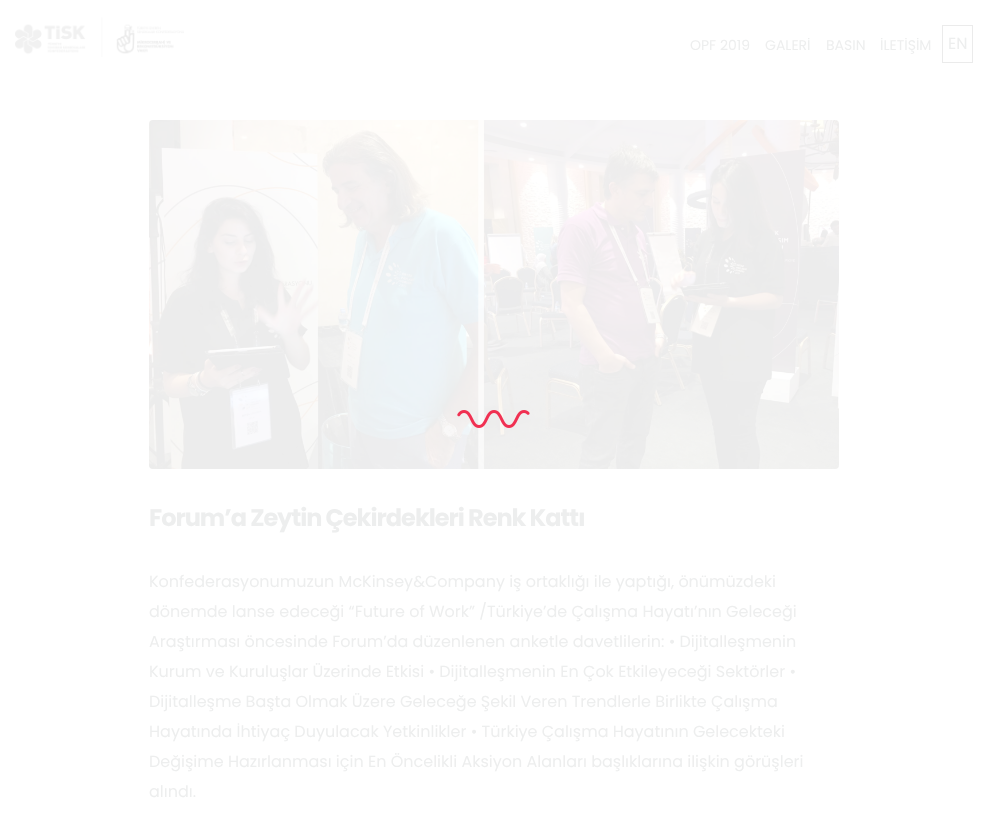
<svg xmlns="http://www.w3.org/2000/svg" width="988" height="837">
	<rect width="100%" height="100%" fill="#FFFFFF" />
	<image x="15" y="17" width="169" height="41" href="assets/img1.png" />
	<g font-family="Poppins" font-size="14" fill="#EDEEEE">
		<text x="690" y="50">OPF 2019</text>
		<text x="765" y="50">GALERİ</text>
		<text x="826" y="50">BASIN</text>
		<text x="880" y="50">İLETİŞİM</text>
	</g>
	<rect x="942.5" y="25.5" width="30" height="37" fill="none" stroke="#EBEBEB" />
	<text x="948" y="49" font-family="Poppins" font-size="16" fill="#EDEEEE">EN</text>
	<image x="149" y="120" width="690" height="349" href="assets/img2.png" />
	<text x="149" y="526" font-family="Poppins" font-size="24" font-weight="700" letter-spacing="-1" fill="#EDEEEE">Forum’a Zeytin Çekirdekleri Renk Kattı</text>
	<g font-family="Poppins" font-size="16" fill="#EDEEEE">
		<text x="149" y="587">Konfederasyonumuzun McKinsey&amp;Company iş ortaklığı ile yaptığı, önümüzdeki</text>
		<text x="149" y="617">dönemde lanse edeceği “Future of Work” /Türkiye’de Çalışma Hayatı’nın Geleceği</text>
		<text x="149" y="647">Araştırması öncesinde Forum’da düzenlenen anketle davetlilerin: • Dijitalleşmenin</text>
		<text x="149" y="677">Kurum ve Kuruluşlar Üzerinde Etkisi • Dijitalleşmenin En Çok Etkileyeceği Sektörler •</text>
		<text x="149" y="707">Dijitalleşme Başta Olmak Üzere Geleceğe Şekil Veren Trendlerle Birlikte Çalışma</text>
		<text x="149" y="737">Hayatında İhtiyaç Duyulacak Yetkinlikler • Türkiye Çalışma Hayatının Gelecekteki</text>
		<text x="149" y="767">Değişime Hazırlanması için En Öncelikli Aksiyon Alanları başlıklarına ilişkin görüşleri</text>
		<text x="149" y="797">alındı.</text>
	</g>
	<image x="457" y="410" width="73" height="18" href="assets/img3.png" />
</svg>
